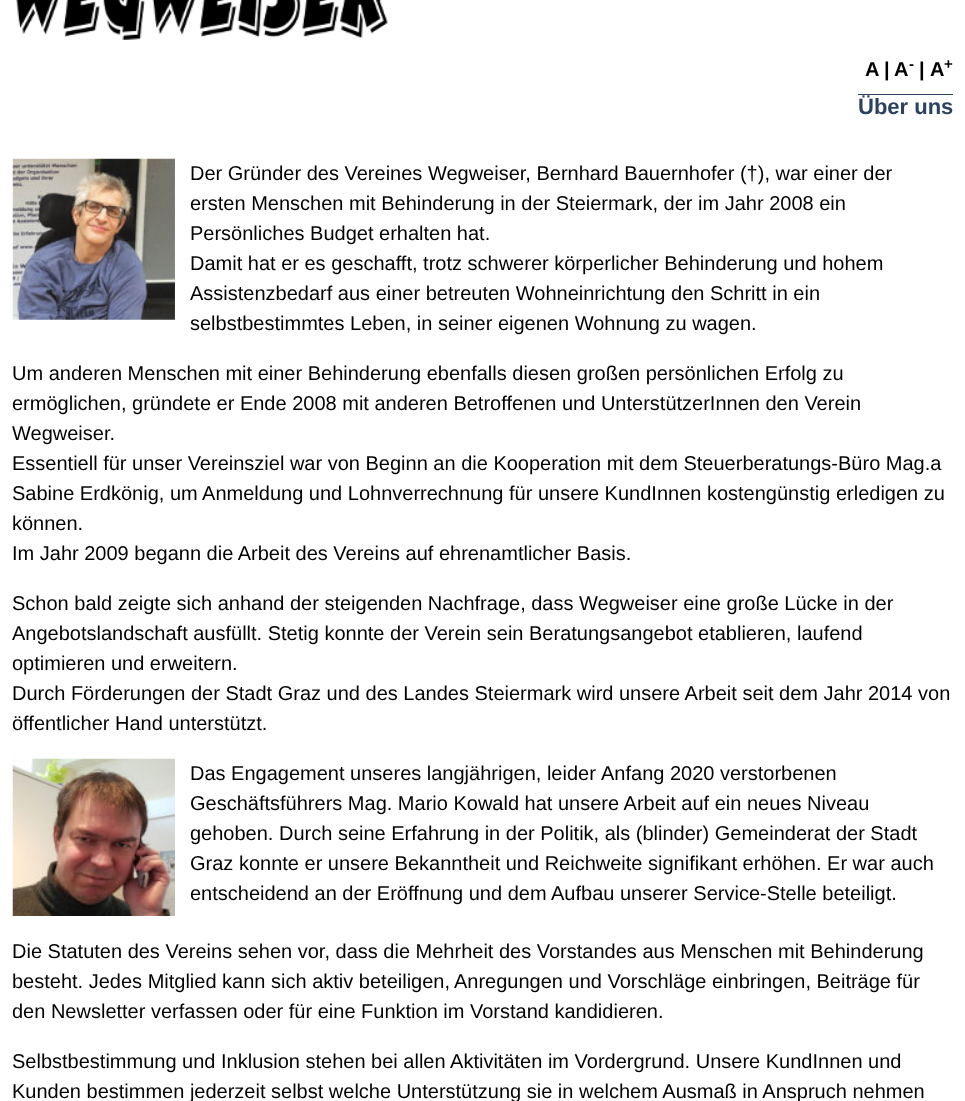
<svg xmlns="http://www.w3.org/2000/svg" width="965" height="1101">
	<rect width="100%" height="100%" fill="#FFFFFF" />
	<image x="16" y="0" width="372" height="40" href="assets/img1.png" />
	<g font-family="Liberation Sans" font-size="20" font-weight="700" fill="#000000">
		<text x="865" y="76">A</text>
		<text x="884" y="76">|</text>
		<text x="894" y="76">A</text>
	</g>
	<text x="909" y="69" font-family="Liberation Sans" font-size="15" font-weight="700" fill="#000000">-</text>
	<g font-family="Liberation Sans" font-size="20" font-weight="700" fill="#000000">
		<text x="919" y="76">|</text>
		<text x="930" y="76">A</text>
	</g>
	<text x="944" y="69" font-family="Liberation Sans" font-size="15" font-weight="700" fill="#000000">+</text>
	<text x="858" y="114" font-family="Liberation Sans" font-size="22" font-weight="700" fill="#2A415F">Über uns</text>
	<rect x="858" y="94" width="95" height="1" fill="#2A415F" />
	<image x="12" y="158" width="163" height="162" href="assets/img2.png" />
	<g font-family="Liberation Sans" font-size="20" fill="#000000">
		<text x="190" y="180">Der Gründer des Vereines Wegweiser, Bernhard Bauernhofer (†), war einer der</text>
		<text x="190" y="210">ersten Menschen mit Behinderung in der Steiermark, der im Jahr 2008 ein</text>
		<text x="190" y="240">Persönliches Budget erhalten hat.</text>
		<text x="190" y="270">Damit hat er es geschafft, trotz schwerer körperlicher Behinderung und hohem</text>
		<text x="190" y="300">Assistenzbedarf aus einer betreuten Wohneinrichtung den Schritt in ein</text>
		<text x="190" y="330">selbstbestimmtes Leben, in seiner eigenen Wohnung zu wagen.</text>
		<text x="12" y="380">Um anderen Menschen mit einer Behinderung ebenfalls diesen großen persönlichen Erfolg zu</text>
		<text x="12" y="410">ermöglichen, gründete er Ende 2008 mit anderen Betroffenen und UnterstützerInnen den Verein</text>
		<text x="12" y="440">Wegweiser.</text>
		<text x="12" y="470">Essentiell für unser Vereinsziel war von Beginn an die Kooperation mit dem Steuerberatungs-Büro Mag.a</text>
		<text x="12" y="500">Sabine Erdkönig, um Anmeldung und Lohnverrechnung für unsere KundInnen kostengünstig erledigen zu</text>
		<text x="12" y="530">können.</text>
		<text x="12" y="560">Im Jahr 2009 begann die Arbeit des Vereins auf ehrenamtlicher Basis.</text>
		<text x="12" y="610">Schon bald zeigte sich anhand der steigenden Nachfrage, dass Wegweiser eine große Lücke in der</text>
		<text x="12" y="640">Angebotslandschaft ausfüllt. Stetig konnte der Verein sein Beratungsangebot etablieren, laufend</text>
		<text x="12" y="670">optimieren und erweitern.</text>
		<text x="12" y="700">Durch Förderungen der Stadt Graz und des Landes Steiermark wird unsere Arbeit seit dem Jahr 2014 von</text>
		<text x="12" y="730">öffentlicher Hand unterstützt.</text>
	</g>
	<image x="12" y="758" width="163" height="158" href="assets/img3.png" />
	<g font-family="Liberation Sans" font-size="20" fill="#000000">
		<text x="190" y="780">Das Engagement unseres langjährigen, leider</text>
		<text x="601" y="780">Anfang 2020 verstorbenen</text>
		<text x="190" y="810">Geschäftsführers Mag. Mario Kowald hat unsere Arbeit auf ein neues Niveau</text>
		<text x="190" y="840">gehoben. Durch seine Erfahrung in der Politik, als (blinder) Gemeinderat der Stadt</text>
		<text x="190" y="870">Graz konnte er unsere Bekanntheit und Reichweite signifikant erhöhen. Er war auch</text>
		<text x="190" y="900">entscheidend an der Eröffnung und dem Aufbau unserer Service-Stelle beteiligt.</text>
		<text x="12" y="958">Die Statuten des Vereins sehen vor, dass die Mehrheit des Vorstandes aus Menschen mit Behinderung</text>
		<text x="12" y="988">besteht. Jedes Mitglied kann sich aktiv beteiligen,</text>
		<text x="454" y="988">Anregungen und Vorschläge einbringen, Beiträge für</text>
		<text x="12" y="1018">den Newsletter verfassen oder für eine Funktion im Vorstand kandidieren.</text>
		<text x="12" y="1068">Selbstbestimmung und Inklusion stehen bei allen Aktivitäten im Vordergrund. Unsere KundInnen und</text>
		<text x="12" y="1098">Kunden bestimmen jederzeit selbst welche Unterstützung sie in welchem Ausmaß in Anspruch nehmen</text>
	</g>
</svg>
